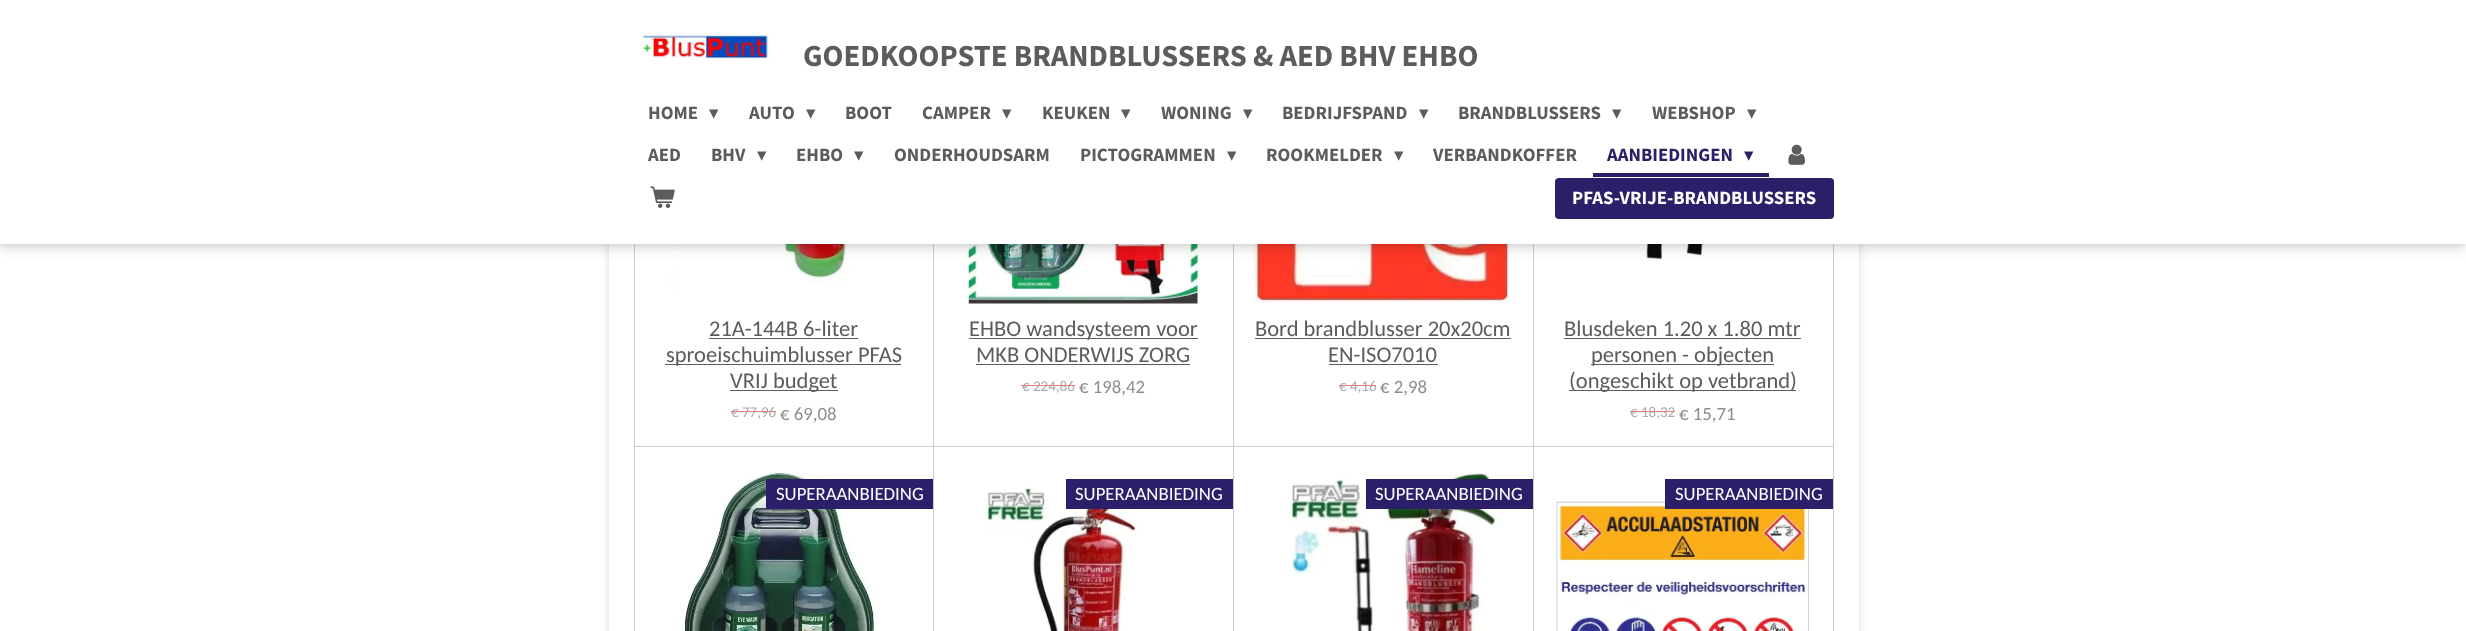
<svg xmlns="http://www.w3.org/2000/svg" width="2466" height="631">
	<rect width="100%" height="100%" fill="#FFFFFF" />
	<rect x="609" y="-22" width="1250" height="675" rx="4" fill="#000000" fill-opacity="0.05" filter="blur(6px)" />
	<rect x="609" y="-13" width="1250" height="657" rx="4" fill="#000000" fill-opacity="0.1" filter="blur(3px)" />
	<rect x="609" y="244" width="1250" height="387" fill="#FFFFFF" />
	<rect x="634.5" y="23.5" width="299" height="424" fill="none" stroke="#CECECE" />
	<image x="670" y="244" width="193" height="45" href="assets/img4.png" />
	<rect x="933.5" y="23.5" width="300" height="424" fill="none" stroke="#CECECE" />
	<image x="968" y="244" width="230" height="60" href="assets/img5.png" />
	<rect x="1233.5" y="23.5" width="300" height="424" fill="none" stroke="#CECECE" />
	<image x="1253" y="244" width="257" height="60" href="assets/img6.png" />
	<rect x="1533.5" y="23.5" width="300" height="424" fill="none" stroke="#CECECE" />
	<image x="1628" y="244" width="99" height="16" href="assets/img7.png" />
	<rect x="0" y="6" width="2466" height="244" fill="#000000" fill-opacity="0.1" filter="blur(6px)" />
	<rect x="0" y="0" width="2466" height="244" fill="#000000" fill-opacity="0.15" filter="blur(3px)" />
	<rect x="0" y="0" width="2466" height="244" fill="#FFFFFF" />
	<image x="640" y="34" width="130" height="25" href="assets/img1.png" />
	<text x="803" y="66" font-family="Source Sans Pro" font-size="30.6" font-weight="700" fill="#5C5C5C">GOEDKOOPSTE BRANDBLUSSERS &amp; AED BHV EHBO</text>
	<text x="648" y="119" font-family="Source Sans Pro" font-size="18.75" font-weight="700" fill="#5C5C5C">HOME</text>
	<text x="709" y="119" font-family="DejaVu Sans" font-size="18.75" fill="#5C5C5C">▾</text>
	<text x="749" y="119" font-family="Source Sans Pro" font-size="18.75" font-weight="700" fill="#5C5C5C">AUTO</text>
	<text x="806" y="119" font-family="DejaVu Sans" font-size="18.75" fill="#5C5C5C">▾</text>
	<g font-family="Source Sans Pro" font-size="18.75" font-weight="700" fill="#5C5C5C">
		<text x="845" y="119">BOOT</text>
		<text x="922" y="119">CAMPER</text>
	</g>
	<text x="1002" y="119" font-family="DejaVu Sans" font-size="18.75" fill="#5C5C5C">▾</text>
	<text x="1042" y="119" font-family="Source Sans Pro" font-size="18.75" font-weight="700" fill="#5C5C5C">KEUKEN</text>
	<text x="1121" y="119" font-family="DejaVu Sans" font-size="18.75" fill="#5C5C5C">▾</text>
	<text x="1161" y="119" font-family="Source Sans Pro" font-size="18.75" font-weight="700" fill="#5C5C5C">WONING</text>
	<text x="1243" y="119" font-family="DejaVu Sans" font-size="18.75" fill="#5C5C5C">▾</text>
	<text x="1282" y="119" font-family="Source Sans Pro" font-size="18.75" font-weight="700" fill="#5C5C5C">BEDRIJFSPAND</text>
	<text x="1419" y="119" font-family="DejaVu Sans" font-size="18.75" fill="#5C5C5C">▾</text>
	<text x="1458" y="119" font-family="Source Sans Pro" font-size="18.75" font-weight="700" fill="#5C5C5C">BRANDBLUSSERS</text>
	<text x="1612" y="119" font-family="DejaVu Sans" font-size="18.75" fill="#5C5C5C">▾</text>
	<text x="1652" y="119" font-family="Source Sans Pro" font-size="18.75" font-weight="700" fill="#5C5C5C">WEBSHOP</text>
	<text x="1747" y="119" font-family="DejaVu Sans" font-size="18.75" fill="#5C5C5C">▾</text>
	<g font-family="Source Sans Pro" font-size="18.75" font-weight="700" fill="#5C5C5C">
		<text x="648" y="161">AED</text>
		<text x="711" y="161">BHV</text>
	</g>
	<text x="757" y="161" font-family="DejaVu Sans" font-size="18.75" fill="#5C5C5C">▾</text>
	<text x="796" y="161" font-family="Source Sans Pro" font-size="18.75" font-weight="700" fill="#5C5C5C">EHBO</text>
	<text x="854" y="161" font-family="DejaVu Sans" font-size="18.75" fill="#5C5C5C">▾</text>
	<g font-family="Source Sans Pro" font-size="18.75" font-weight="700" fill="#5C5C5C">
		<text x="894" y="161">ONDERHOUDSARM</text>
		<text x="1080" y="161">PICTOGRAMMEN</text>
	</g>
	<text x="1227" y="161" font-family="DejaVu Sans" font-size="18.75" fill="#5C5C5C">▾</text>
	<text x="1266" y="161" font-family="Source Sans Pro" font-size="18.75" font-weight="700" fill="#5C5C5C">ROOKMELDER</text>
	<text x="1394" y="161" font-family="DejaVu Sans" font-size="18.75" fill="#5C5C5C">▾</text>
	<text x="1433" y="161" font-family="Source Sans Pro" font-size="18.75" font-weight="700" fill="#5C5C5C">VERBANDKOFFER</text>
	<rect x="1593" y="173" width="176" height="4" fill="#2A1F68" />
	<text x="1607" y="161" font-family="Source Sans Pro" font-size="18.75" font-weight="700" fill="#2A1F68">AANBIEDINGEN</text>
	<text x="1744" y="161" font-family="DejaVu Sans" font-size="18.75" fill="#2A1F68">▾</text>
	<image x="1788" y="144" width="17" height="21" href="assets/img2.png" />
	<image x="650" y="186" width="25" height="22" href="assets/img3.png" />
	<rect x="1555" y="178" width="279" height="41" rx="4" fill="#2A1F68" />
	<text x="1572" y="204" font-family="Source Sans Pro" font-size="18.75" font-weight="700" fill="#FFFFFF">PFAS-VRIJE-BRANDBLUSSERS</text>
	<text x="709" y="336" font-family="Carlito" font-size="22.5" fill="#5C5C5C">21A-144B 6-liter</text>
	<rect x="709" y="338" width="149" height="1" fill="#5C5C5C" />
	<rect x="665" y="364" width="236" height="1" fill="#5C5C5C" />
	<text x="666" y="362" font-family="Carlito" font-size="22.5" fill="#5C5C5C">sproeischuimblusser PFAS</text>
	<rect x="730" y="390" width="108" height="1" fill="#5C5C5C" />
	<text x="730" y="388" font-family="Carlito" font-size="22.5" fill="#5C5C5C">VRIJ budget</text>
	<text x="731" y="417" font-family="Carlito" font-size="15" fill="#AAAAAA">€ 77,96</text>
	<rect x="731" y="411" width="45" height="1" fill="#E37E7B" />
	<text x="780" y="420" font-family="Carlito" font-size="18.75" fill="#8D8D8D">€ 69,08</text>
	<rect x="969" y="338" width="229" height="1" fill="#5C5C5C" />
	<g font-family="Carlito" font-size="22.5" fill="#5C5C5C">
		<text x="969" y="336">EHBO wandsysteem voor</text>
		<text x="976" y="362">MKB ONDERWIJS ZORG</text>
	</g>
	<rect x="976" y="364" width="214" height="1" fill="#5C5C5C" />
	<text x="1022" y="391" font-family="Carlito" font-size="15" fill="#AAAAAA">€ 224,86</text>
	<rect x="1021" y="385" width="54" height="1" fill="#E37E7B" />
	<text x="1079" y="393" font-family="Carlito" font-size="18.75" fill="#8D8D8D">€ 198,42</text>
	<text x="1255" y="336" font-family="Carlito" font-size="22.5" fill="#5C5C5C">Bord brandblusser 20x20cm</text>
	<rect x="1255" y="338" width="256" height="1" fill="#5C5C5C" />
	<text x="1328" y="362" font-family="Carlito" font-size="22.5" fill="#5C5C5C">EN-ISO7010</text>
	<rect x="1329" y="364" width="109" height="1" fill="#5C5C5C" />
	<text x="1339" y="391" font-family="Carlito" font-size="15" fill="#AAAAAA">€ 4,16</text>
	<rect x="1339" y="385" width="37" height="1" fill="#E37E7B" />
	<text x="1380" y="393" font-family="Carlito" font-size="18.75" fill="#8D8D8D">€ 2,98</text>
	<text x="1564" y="336" font-family="Carlito" font-size="22.5" fill="#5C5C5C">Blusdeken 1.20 x 1.80 mtr</text>
	<rect x="1564" y="338" width="237" height="1" fill="#5C5C5C" />
	<rect x="1591" y="364" width="183" height="1" fill="#5C5C5C" />
	<text x="1591" y="362" font-family="Carlito" font-size="22.5" fill="#5C5C5C">personen - objecten</text>
	<rect x="1569" y="390" width="227" height="1" fill="#5C5C5C" />
	<text x="1569" y="388" font-family="Carlito" font-size="22.5" fill="#5C5C5C">(ongeschikt op vetbrand)</text>
	<text x="1630" y="417" font-family="Carlito" font-size="15" fill="#AAAAAA">€ 18,32</text>
	<rect x="1630" y="411" width="45" height="1" fill="#E37E7B" />
	<text x="1679" y="420" font-family="Carlito" font-size="18.75" fill="#8D8D8D">€ 15,71</text>
	<rect x="635" y="447" width="298" height="1" fill="#FFFFFF" />
	<rect x="634.5" y="446.5" width="299" height="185" fill="none" stroke="#CECECE" />
	<image x="684" y="472" width="192" height="159" href="assets/img8.png" />
	<rect x="766" y="479" width="167" height="30" fill="#2A1F68" />
	<text x="776" y="500" font-family="Carlito" font-size="18.75" fill="#FFFFFF">SUPERAANBIEDING</text>
	<rect x="934" y="447" width="299" height="1" fill="#FFFFFF" />
	<rect x="933.5" y="446.5" width="300" height="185" fill="none" stroke="#CECECE" />
	<image x="985" y="487" width="154" height="144" href="assets/img9.png" />
	<rect x="1066" y="479" width="167" height="30" fill="#2A1F68" />
	<text x="1075" y="500" font-family="Carlito" font-size="18.75" fill="#FFFFFF">SUPERAANBIEDING</text>
	<rect x="1234" y="447" width="299" height="1" fill="#FFFFFF" />
	<rect x="1233.5" y="446.5" width="300" height="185" fill="none" stroke="#CECECE" />
	<image x="1287" y="472" width="210" height="159" href="assets/img10.png" />
	<rect x="1366" y="479" width="167" height="30" fill="#2A1F68" />
	<text x="1375" y="500" font-family="Carlito" font-size="18.75" fill="#FFFFFF">SUPERAANBIEDING</text>
	<rect x="1534" y="447" width="299" height="1" fill="#FFFFFF" />
	<rect x="1533.5" y="446.5" width="300" height="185" fill="none" stroke="#CECECE" />
	<image x="1556" y="501" width="253" height="130" href="assets/img11.png" />
	<rect x="1665" y="479" width="168" height="30" fill="#2A1F68" />
	<text x="1675" y="500" font-family="Carlito" font-size="18.75" fill="#FFFFFF">SUPERAANBIEDING</text>
</svg>
